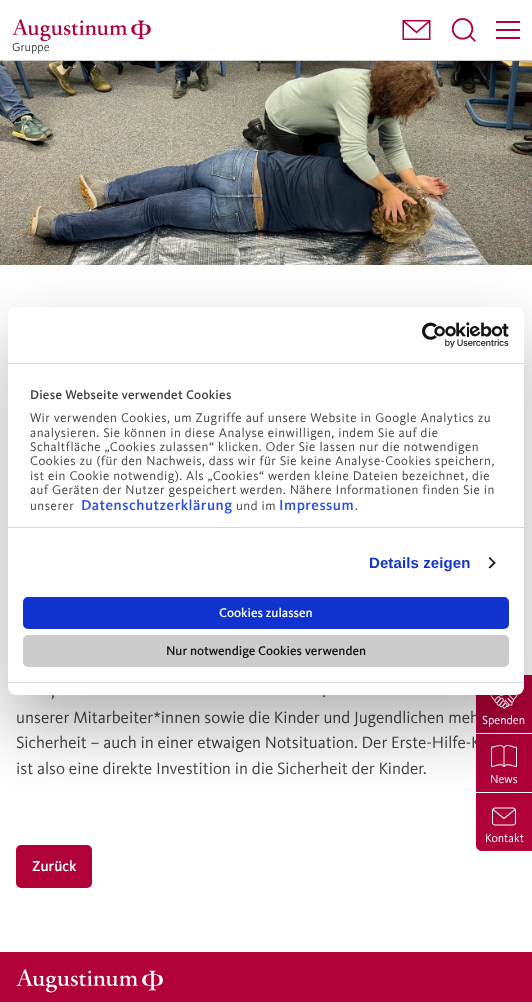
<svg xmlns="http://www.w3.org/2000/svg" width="532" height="1002">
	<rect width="100%" height="100%" fill="#FFFFFF" />
	<rect x="0" y="60" width="532" height="1" fill="#CCCCCC" />
	<image x="402" y="20" width="29" height="20" href="assets/img1.png" />
	<image x="451" y="18" width="25" height="24" href="assets/img2.png" />
	<rect x="496" y="37" width="24" height="2" fill="#B00238" />
	<rect x="496" y="21" width="24" height="2" fill="#B00238" />
	<rect x="496" y="29" width="24" height="2" fill="#B00238" />
	<image x="12" y="19" width="139" height="22" href="assets/img3.png" />
	<text x="12" y="51" font-family="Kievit" font-size="12" fill="#414241">Gruppe</text>
	<image x="0" y="61" width="532" height="204" href="assets/img5.png" />
	<text x="16" y="723" font-family="Kievit" font-size="17" fill="#414241">unserer Mitarbeiter*innen sowie die Kinder und Jugendlichen meh</text>
	<rect x="476" y="675" width="56" height="58" fill="#B00238" />
	<image x="490" y="694" width="28" height="15" href="assets/img6.png" />
	<text x="16" y="748" font-family="Kievit" font-size="17" fill="#414241">Sicherheit – auch in einer etwaigen Notsituation. Der Erste-Hilfe-K</text>
	<rect x="476" y="734" width="56" height="58" fill="#B00238" />
	<image x="491" y="745" width="26" height="22" href="assets/img7.png" />
	<path d="M476 793H532V851H482C478.5 851 476 848.5 476 845Z" fill="#B00238" />
	<image x="492" y="807" width="24" height="19" href="assets/img8.png" />
	<rect x="8" y="339" width="516" height="388" rx="8" fill="#000000" fill-opacity="0.3" filter="blur(34px)" />
	<rect x="8" y="307" width="516" height="388" rx="8" fill="#FFFFFF" />
	<rect x="8" y="363" width="516" height="1" fill="#D6D6D6" />
	<image x="422" y="322" width="87" height="26" href="assets/img4.png" />
	<rect x="8" y="527" width="516" height="1" fill="#D6D6D6" />
	<text x="30" y="399" font-family="Kievit" font-size="13" font-weight="500" letter-spacing="0.25" fill="#414241">Diese Webseite verwendet Cookies</text>
	<g font-family="Kievit" font-size="13" letter-spacing="0.5" fill="#414241">
		<text x="30" y="422">Wir verwenden Cookies, um Zugriffe auf unsere Website in Google Analytics zu</text>
		<text x="30" y="437">analysieren. Sie können in diese Analyse einwilligen, indem Sie auf die</text>
		<text x="30" y="451">Schaltfläche „Cookies zulassen“ klicken. Oder Sie lassen nur die notwendigen</text>
		<text x="30" y="465">Cookies zu (für den Nachweis, dass wir für Sie keine Analyse-Cookies speichern,</text>
		<text x="30" y="480">ist ein Cookie notwendig). Als „Cookies“ werden kleine Dateien bezeichnet, die</text>
		<text x="30" y="494">auf Geräten der Nutzer gespeichert werden. Nähere Informationen finden Sie in</text>
		<text x="30" y="510">unserer</text>
	</g>
	<text x="81" y="510" font-family="Kievit" font-size="15" font-weight="500" letter-spacing="0.5" fill="#2A4EEF">Datenschutzerklärung</text>
	<text x="236" y="510" font-family="Kievit" font-size="13" letter-spacing="0.5" fill="#414241">und im</text>
	<text x="279" y="510" font-family="Kievit" font-size="15" font-weight="500" letter-spacing="0.5" fill="#2A4EEF">Impressum</text>
	<text x="355" y="510" font-family="Kievit" font-size="13" letter-spacing="0.5" fill="#414241">.</text>
	<text x="369" y="568" font-family="Liberation Sans" font-size="15" font-weight="700" letter-spacing="0.1" fill="#1032CF">Details zeigen</text>
	<path d="M490 557L495.5 563L494.5 564L488.5 558Z" fill="#141414" />
	<path d="M494.5 561.5L495.5 563L490 568.5L488.5 567.5Z" fill="#141414" />
	<rect x="8" y="682" width="516" height="1" fill="#D6D6D6" />
	<rect x="24" y="598" width="484" height="30" rx="4" fill="#1032CF" stroke="#1032CF" stroke-width="2" />
	<text x="219" y="617" font-family="Kievit" font-size="13" font-weight="500" fill="#FFFFFF">Cookies zulassen</text>
	<rect x="24" y="636" width="484" height="30" rx="4" fill="#CCCCCC" stroke="#CCCCCC" stroke-width="2" />
	<text x="166" y="655" font-family="Kievit" font-size="13" font-weight="500" fill="#141414">Nur notwendige Cookies verwenden</text>
	<g font-family="Kievit" font-size="17" fill="#414241">
		<text x="51" y="697">,</text>
		<text x="322" y="697">.</text>
		<text x="16" y="774">ist also eine direkte Investition in die Sicherheit der Kinder.</text>
	</g>
	<rect x="16" y="845" width="76" height="43" rx="5" fill="#B00238" />
	<text x="32" y="871" font-family="Kievit" font-size="15" font-weight="500" fill="#FFFFFF">Zurück</text>
	<g font-family="Kievit" font-size="12" fill="#FFFFFF">
		<text x="482" y="724">Spenden</text>
		<text x="490" y="783">News</text>
		<text x="485" y="842">Kontakt</text>
	</g>
	<rect x="0" y="952" width="532" height="50" fill="#B00238" />
	<image x="16" y="969" width="147" height="24" href="assets/img9.png" />
</svg>
